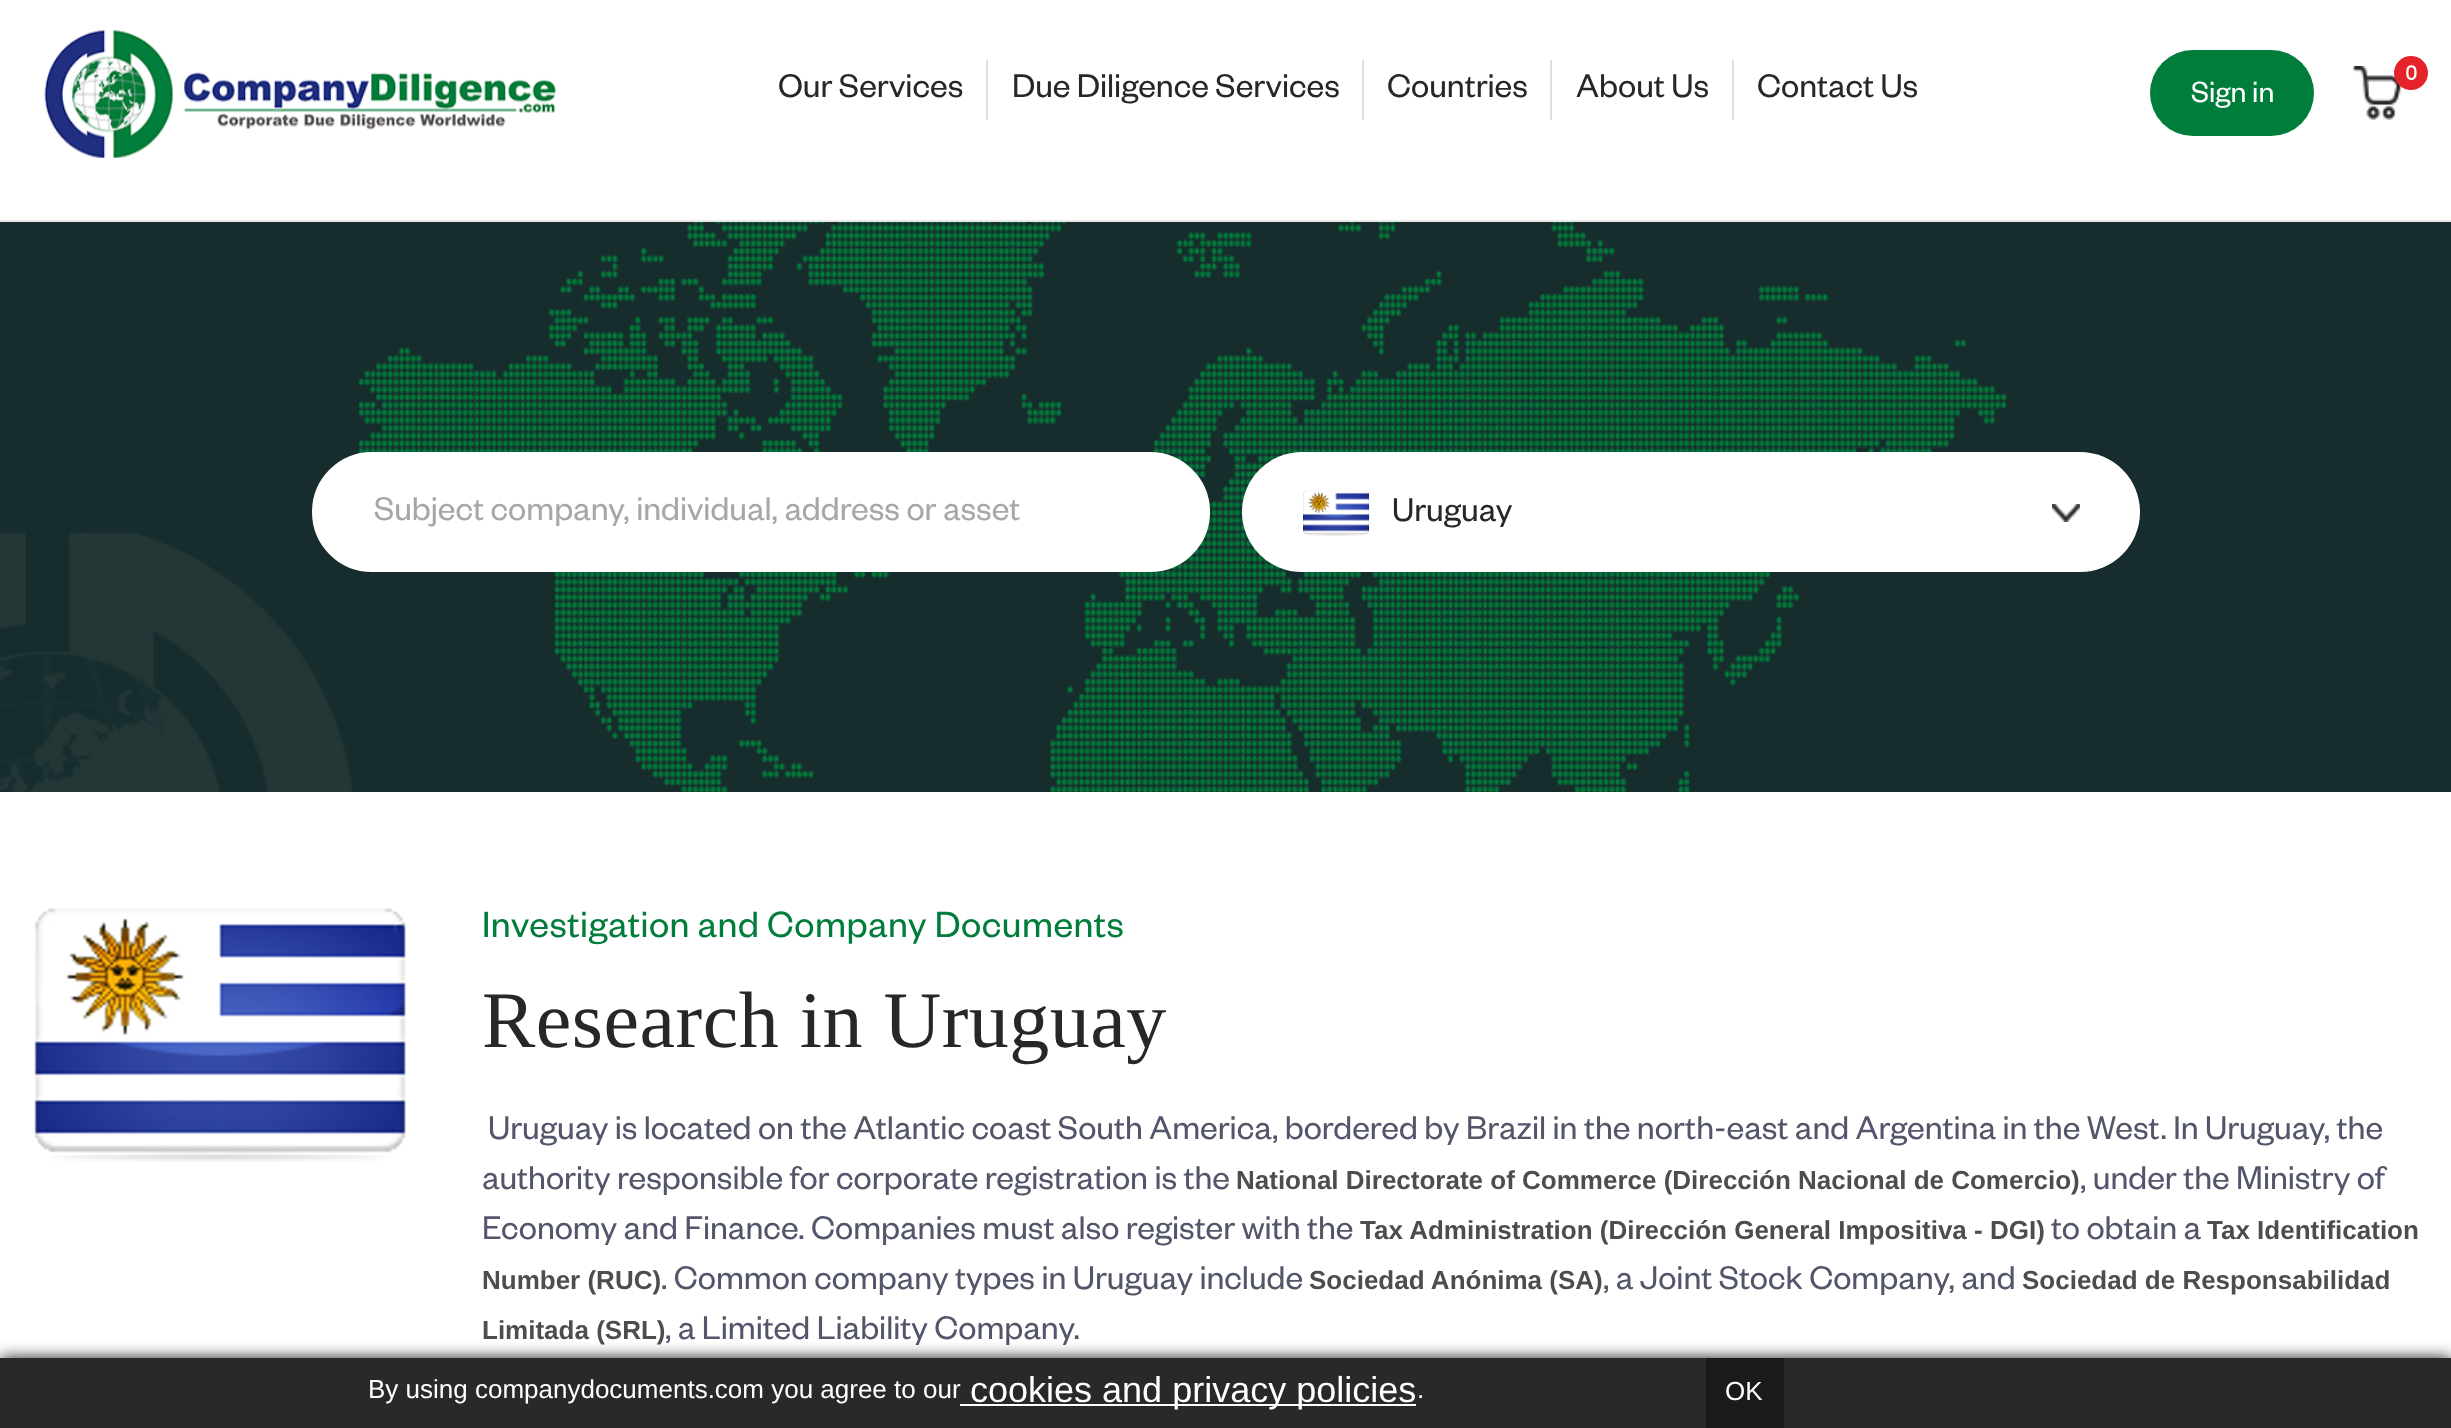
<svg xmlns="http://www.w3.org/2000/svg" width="2451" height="1428">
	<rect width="100%" height="100%" fill="#FFFFFF" />
	<rect x="0" y="220" width="2451" height="2" fill="#E6E6E6" />
	<image x="44" y="30" width="512" height="128" href="assets/img1.png" />
	<text x="778" y="97" font-family="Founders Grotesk" font-size="36" fill="#272727">Our Services</text>
	<rect x="986" y="60" width="2" height="60" fill="#E0E0E0" />
	<text x="1012" y="97" font-family="Founders Grotesk" font-size="36" fill="#272727">Due Diligence Services</text>
	<rect x="1362" y="60" width="2" height="60" fill="#E0E0E0" />
	<text x="1387" y="97" font-family="Founders Grotesk" font-size="36" fill="#272727">Countries</text>
	<rect x="1550" y="60" width="2" height="60" fill="#E0E0E0" />
	<text x="1576" y="97" font-family="Founders Grotesk" font-size="36" fill="#272727">About Us</text>
	<rect x="1732" y="60" width="2" height="60" fill="#E0E0E0" />
	<text x="1757" y="97" font-family="Founders Grotesk" font-size="36" fill="#272727">Contact Us</text>
	<image x="2352" y="66" width="50" height="54" href="assets/img2.png" />
	<circle cx="2411" cy="73" r="17" fill="#E4232A" />
	<text x="2405" y="80" font-family="Poppins" font-size="20" font-weight="500" fill="#FFFFFF">0</text>
	<rect x="2150" y="50" width="164" height="86" rx="43" fill="#007D3B" />
	<text x="2191" y="102" font-family="Founders Grotesk" font-size="32" fill="#FFFFFF">Sign in</text>
	<image x="0" y="222" width="2451" height="570" href="assets/img3.png" />
	<rect x="313" y="453" width="896" height="118" rx="59" fill="#FFFFFF" stroke="#FFFFFF" stroke-width="2" />
	<text x="374" y="520" font-family="Founders Grotesk" font-size="36" fill="#A7A7A7">Subject company, individual, address or asset</text>
	<rect x="1242" y="452" width="898" height="120" rx="60" fill="#FFFFFF" />
	<image x="1303" y="490" width="67" height="46" href="assets/img4.png" />
	<text x="1392" y="521" font-family="Founders Grotesk" font-size="36" fill="#272727">Uruguay</text>
	<image x="2052" y="504" width="28" height="18" href="assets/img5.png" />
	<image x="34" y="908" width="372" height="254" href="assets/img6.png" />
	<text x="482" y="937" font-family="Founders Grotesk" font-size="40" letter-spacing="0.5" fill="#007D3B">Investigation and Company Documents</text>
	<text x="482" y="1047" font-family="Liberation Serif" font-size="80" letter-spacing="0.5" fill="#272727">Research in Uruguay</text>
	<g font-family="Founders Grotesk" font-size="36" fill="#53566A">
		<text x="488" y="1139">Uruguay is located on the Atlantic coast South America, bordered by Brazil in the north-east and Argentina in the West. In Uruguay, the</text>
		<text x="482" y="1189">authority responsible for corporate registration is the</text>
	</g>
	<text x="1236" y="1189" font-family="Liberation Sans" font-size="26" font-weight="700" fill="#4D4D4D">National Directorate of Commerce (Dirección Nacional de Comercio)</text>
	<g font-family="Founders Grotesk" font-size="36" fill="#53566A">
		<text x="2080" y="1189">, under the Ministry of</text>
		<text x="482" y="1239">Economy and Finance. Companies must also register with the</text>
	</g>
	<text x="1360" y="1239" font-family="Liberation Sans" font-size="26" font-weight="700" fill="#4D4D4D">Tax Administration (Dirección General Impositiva - DGI)</text>
	<text x="2051" y="1239" font-family="Founders Grotesk" font-size="36" fill="#53566A">to obtain a</text>
	<g font-family="Liberation Sans" font-size="26" font-weight="700" fill="#4D4D4D">
		<text x="2207" y="1239">Tax Identification</text>
		<text x="482" y="1289">Number (RUC)</text>
	</g>
	<text x="661" y="1289" font-family="Founders Grotesk" font-size="36" fill="#53566A">. Common company types in Uruguay include</text>
	<text x="1309" y="1289" font-family="Liberation Sans" font-size="26" font-weight="700" fill="#4D4D4D">Sociedad Anónima (SA)</text>
	<text x="1603" y="1289" font-family="Founders Grotesk" font-size="36" fill="#53566A">, a Joint Stock Company, and</text>
	<g font-family="Liberation Sans" font-size="26" font-weight="700" fill="#4D4D4D">
		<text x="2022" y="1289">Sociedad de Responsabilidad</text>
		<text x="482" y="1339">Limitada (SRL)</text>
	</g>
	<text x="665" y="1339" font-family="Founders Grotesk" font-size="36" fill="#53566A">, a Limited Liability Company.</text>
	<rect x="0" y="1358" width="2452" height="70" fill="#000000" fill-opacity="0.9" filter="blur(8px)" />
	<rect x="0" y="1358" width="2451" height="70" fill="#292929" />
	<text x="368" y="1398" font-family="Liberation Sans" font-size="26" fill="#FFFFFF">By using companydocuments.com you agree to our</text>
	<rect x="960" y="1404" width="456" height="2" fill="#FFFFFF" />
	<text x="970" y="1402" font-family="Liberation Sans" font-size="36" fill="#FFFFFF">cookies and privacy policies</text>
	<text x="1417" y="1398" font-family="Liberation Sans" font-size="26" fill="#FFFFFF">.</text>
	<rect x="1706" y="1358" width="78" height="70" fill="#1A1A1A" />
	<text x="1725" y="1400" font-family="Liberation Sans" font-size="26" fill="#FFFFFF">OK</text>
</svg>
